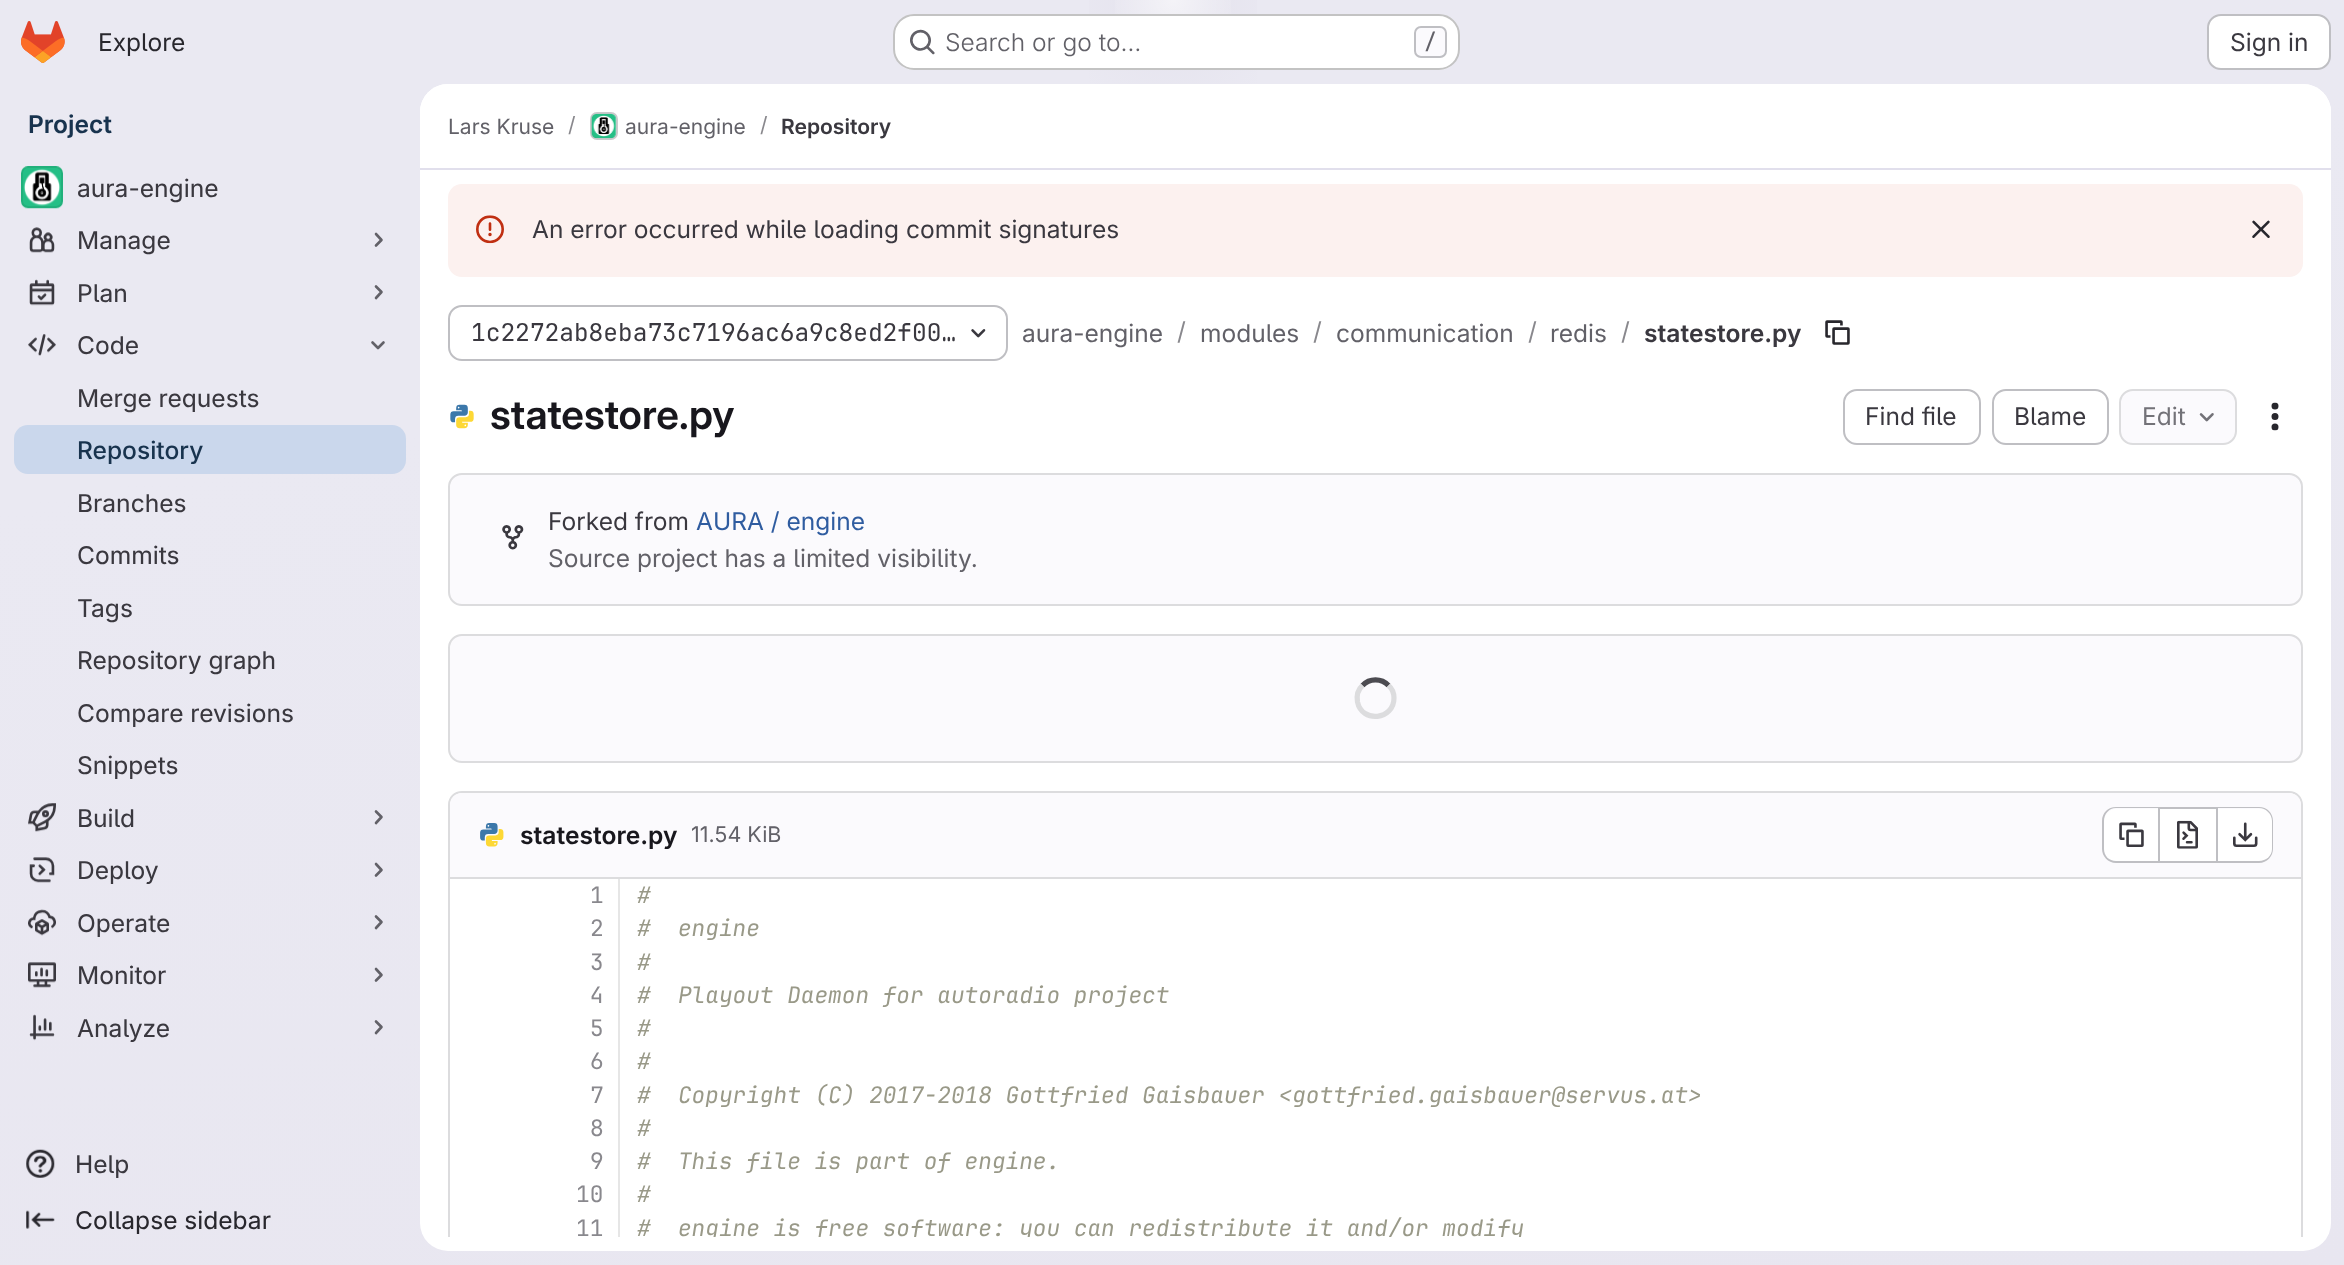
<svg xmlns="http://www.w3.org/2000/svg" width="2344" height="1265">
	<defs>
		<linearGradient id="g1" gradientUnits="userSpaceOnUse" x1="1316" y1="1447" x2="1029" y2="-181"><stop offset="0" stop-color="#E8E6F0" /><stop offset="0.7" stop-color="#EAE9F2" /></linearGradient>
		<radialGradient id="g2" gradientUnits="userSpaceOnUse" cx="0" cy="0" r="1" gradientTransform="matrix(1173 0 0 1265 1173 0)"><stop offset="0" stop-color="#E4E2ED" /><stop offset="0.1" stop-color="#E4E2ED" stop-opacity="0" /></radialGradient>
		<radialGradient id="g3" gradientUnits="userSpaceOnUse" cx="0" cy="0" r="1" gradientTransform="matrix(1173 0 0 1265 1173 0)"><stop offset="0" stop-color="#E4E2EC" /><stop offset="0.07" stop-color="#E4E2EC" stop-opacity="0" /></radialGradient>
		<radialGradient id="g4" gradientUnits="userSpaceOnUse" cx="1173" cy="0" r="1725"><stop offset="0" stop-color="#FFFFFF" stop-opacity="0.6" /><stop offset="0.04" stop-color="#FFFFFF" stop-opacity="0" /></radialGradient>
		<clipPath id="clip1"><rect x="420" y="170" width="1911" height="1067" /></clipPath>
		<clipPath id="clip2"><rect x="618" y="879" width="1683" height="358" /></clipPath>
	</defs>
	<rect width="100%" height="100%" fill="#FFFFFF" />
	<rect x="0" y="0" width="2344" height="1265" fill="url(#g1)" />
	<rect x="1089" y="0" width="168" height="84" fill="url(#g2)" />
	<rect x="1141" y="14" width="64" height="1" fill="url(#g3)" />
	<rect x="1115" y="0" width="116" height="14" fill="url(#g4)" />
	<image x="21" y="21" width="44" height="42" href="assets/img1.png" />
	<text x="98" y="51" font-family="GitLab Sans" font-size="24.5" fill="#28272D">Explore</text>
	<rect x="893" y="14" width="567" height="56" rx="21" fill="#FFFFFF" />
	<rect x="894" y="15" width="565" height="54" rx="20" fill="none" stroke="#050506" stroke-opacity="0.24" stroke-width="2" />
	<image x="910" y="29" width="25" height="26" href="assets/img2.png" />
	<text x="945" y="51" font-family="GitLab Sans" font-size="24.5" font-weight="300" fill="#626168">Search or go to…</text>
	<rect x="1415" y="27" width="31" height="30" rx="6" fill="#FBFAFD" stroke="#BFBFC3" stroke-width="2" />
	<text x="1424" y="49" font-family="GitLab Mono" font-size="21" font-weight="500" fill="#626168">/</text>
	<rect x="2208" y="15" width="122" height="54" rx="13" fill="#FFFFFF" stroke="#BFBFC3" stroke-width="2" />
	<text x="2230" y="51" font-family="GitLab Sans" font-size="24.5" fill="#3A383F">Sign in</text>
	<text x="28" y="133" font-family="GitLab Sans" font-size="24.5" font-weight="600" fill="#18334E">Project</text>
	<rect x="21" y="166" width="42" height="42" rx="7" fill="#FFFFFF" />
	<image x="21" y="166" width="42" height="43" href="assets/img3.png" />
	<rect x="22" y="167" width="40" height="40" rx="6" fill="none" stroke="#050506" stroke-opacity="0.08" stroke-width="2" />
	<text x="77" y="197" font-family="'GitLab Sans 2'" font-size="24.5" fill="#3A383F">aura-engine</text>
	<image x="29" y="227" width="26" height="26" href="assets/img4.png" />
	<text x="77" y="249" font-family="'GitLab Sans 2'" font-size="24.5" fill="#3A383F">Manage</text>
	<path d="M376 234L381.5 240L376 245.5" fill="none" stroke="#626168" stroke-width="2.6" stroke-linecap="round" stroke-linejoin="round" />
	<image x="29" y="279" width="26" height="27" href="assets/img5.png" />
	<text x="77" y="302" font-family="'GitLab Sans 2'" font-size="24.5" fill="#3A383F">Plan</text>
	<path d="M376 286.5L381.5 292L376 298" fill="none" stroke="#626168" stroke-width="2.6" stroke-linecap="round" stroke-linejoin="round" />
	<image x="28" y="334" width="28" height="22" href="assets/img6.png" />
	<text x="77" y="354" font-family="'GitLab Sans 2'" font-size="24.5" fill="#3A383F">Code</text>
	<path d="M383.5 342.5L378 348L372.5 342.5" fill="none" stroke="#626168" stroke-width="2.6" stroke-linecap="round" stroke-linejoin="round" />
	<text x="77" y="407" font-family="'GitLab Sans 2'" font-size="24.5" fill="#3A383F">Merge requests</text>
	<rect x="14" y="425" width="392" height="49" rx="14" fill="#CAD7EC" />
	<text x="77" y="459" font-family="GitLab Sans" font-size="24.5" font-weight="500" fill="#18334E">Repository</text>
	<g font-family="'GitLab Sans 2'" font-size="24.5" fill="#3A383F">
		<text x="77" y="512">Branches</text>
		<text x="77" y="564">Commits</text>
		<text x="77" y="617">Tags</text>
		<text x="77" y="669">Repository graph</text>
		<text x="77" y="722">Compare revisions</text>
		<text x="77" y="774">Snippets</text>
	</g>
	<image x="28" y="803" width="28" height="29" href="assets/img7.png" />
	<text x="77" y="827" font-family="'GitLab Sans 2'" font-size="24.5" fill="#3A383F">Build</text>
	<path d="M376 811.5L381.5 817L376 823" fill="none" stroke="#626168" stroke-width="2.6" stroke-linecap="round" stroke-linejoin="round" />
	<image x="29" y="857" width="26" height="26" href="assets/img8.png" />
	<text x="77" y="879" font-family="'GitLab Sans 2'" font-size="24.5" fill="#3A383F">Deploy</text>
	<path d="M376 864L381.5 870L376 875.5" fill="none" stroke="#626168" stroke-width="2.6" stroke-linecap="round" stroke-linejoin="round" />
	<image x="28" y="909" width="28" height="27" href="assets/img9.png" />
	<text x="77" y="932" font-family="'GitLab Sans 2'" font-size="24.5" fill="#3A383F">Operate</text>
	<path d="M376 916.5L381.5 922L376 928" fill="none" stroke="#626168" stroke-width="2.6" stroke-linecap="round" stroke-linejoin="round" />
	<image x="28" y="962" width="28" height="26" href="assets/img10.png" />
	<text x="77" y="984" font-family="'GitLab Sans 2'" font-size="24.5" fill="#3A383F">Monitor</text>
	<path d="M376 969L381.5 975L376 980.5" fill="none" stroke="#626168" stroke-width="2.6" stroke-linecap="round" stroke-linejoin="round" />
	<image x="29" y="1014" width="26" height="27" href="assets/img11.png" />
	<text x="77" y="1037" font-family="'GitLab Sans 2'" font-size="24.5" fill="#3A383F">Analyze</text>
	<path d="M376 1021.5L381.5 1027L376 1033" fill="none" stroke="#626168" stroke-width="2.6" stroke-linecap="round" stroke-linejoin="round" />
	<image x="26" y="1149" width="29" height="29" href="assets/img12.png" />
	<text x="75" y="1173" font-family="'GitLab Sans 2'" font-size="24.5" fill="#3A383F">Help</text>
	<image x="26" y="1210" width="29" height="19" href="assets/img13.png" />
	<text x="75" y="1229" font-family="'GitLab Sans 2'" font-size="24.5" fill="#28272D">Collapse sidebar</text>
	<rect x="420" y="84" width="1911" height="1167" rx="28" fill="#FFFFFF" />
	<path d="M448 84H2303C2318.5 84 2331 96.5 2331 112V170H420V112C420 96.5 432.5 84 448 84Z" fill="#FFFFFF" />
	<rect x="420" y="168" width="1911" height="2" fill="#E1DFEC" />
	<text x="448" y="134" font-family="GitLab Sans" font-size="21" fill="#626168">Lars Kruse</text>
	<text x="568" y="132" font-family="GitLab Sans" font-size="21" fill="#89888D">/</text>
	<rect x="591" y="113" width="26" height="26" rx="6" fill="none" stroke="#DCDCDE" stroke-width="2" />
	<image x="591" y="113" width="26" height="26" href="assets/img14.png" />
	<rect x="591" y="113" width="26" height="26" rx="6" fill="none" stroke="#050506" stroke-opacity="0.08" stroke-width="2" />
	<text x="625" y="134" font-family="GitLab Sans" font-size="21" fill="#626168">aura-engine</text>
	<text x="760" y="132" font-family="GitLab Sans" font-size="21" fill="#89888D">/</text>
	<text x="781" y="134" font-family="GitLab Sans" font-size="21" font-weight="600" fill="#3A383F">Repository</text>
	<rect x="448" y="184" width="1855" height="93" rx="14" fill="#FCF1EF" />
	<image x="476" y="215" width="28" height="29" href="assets/img15.png" />
	<text x="532" y="238" font-family="GitLab Sans" font-size="24.5" fill="#3A383F">An error occurred while loading commit signatures</text>
	<image x="2252" y="220" width="18" height="18" href="assets/img16.png" />
	<rect x="449" y="306" width="558" height="54" rx="13" fill="none" stroke="#BFBFC3" stroke-width="2" />
	<text x="471" y="341" font-family="GitLab Mono" font-size="24.5" fill="#3A383F">1c2272ab8eba73c7196ac6a9c8ed2f00…</text>
	<image x="971" y="329" width="15" height="9" href="assets/img17.png" />
	<text x="1022" y="342" font-family="GitLab Sans" font-size="24.5" fill="#626168">aura-engine</text>
	<text x="1177" y="340" font-family="GitLab Sans" font-size="24.5" fill="#89888D">/</text>
	<text x="1200" y="342" font-family="GitLab Sans" font-size="24.5" fill="#626168">modules</text>
	<text x="1313" y="340" font-family="GitLab Sans" font-size="24.5" fill="#89888D">/</text>
	<text x="1336" y="342" font-family="GitLab Sans" font-size="24.5" fill="#626168">communication</text>
	<text x="1528" y="340" font-family="GitLab Sans" font-size="24.5" fill="#89888D">/</text>
	<text x="1550" y="342" font-family="GitLab Sans" font-size="24.5" fill="#626168">redis</text>
	<text x="1621" y="340" font-family="GitLab Sans" font-size="24.5" fill="#89888D">/</text>
	<text x="1644" y="342" font-family="GitLab Sans" font-size="24.5" font-weight="600" fill="#3A383F">statestore.py</text>
	<image x="1825" y="320" width="25" height="25" href="assets/img18.png" />
	<image x="450" y="404" width="24" height="25" href="assets/img19.png" />
	<text x="490" y="429" font-family="'GitLab Sans 2'" font-size="40.25" font-weight="600" fill="#18171D">statestore.py</text>
	<rect x="1844" y="390" width="136" height="54" rx="13" fill="none" stroke="#BFBFC3" stroke-width="2" />
	<text x="1865" y="425" font-family="GitLab Sans" font-size="24.5" fill="#3A383F">Find file</text>
	<rect x="1993" y="390" width="115" height="54" rx="13" fill="none" stroke="#BFBFC3" stroke-width="2" />
	<text x="2014" y="425" font-family="GitLab Sans" font-size="24.5" fill="#3A383F">Blame</text>
	<rect x="2120" y="390" width="116" height="54" rx="13" fill="#FBFAFD" stroke="#DCDCDE" stroke-width="2" />
	<text x="2142" y="425" font-family="GitLab Sans" font-size="24.5" fill="#737278">Edit</text>
	<image x="2199" y="413" width="15" height="9" href="assets/img20.png" />
	<image x="2271" y="402" width="8" height="29" href="assets/img21.png" />
	<rect x="449" y="474" width="1853" height="131" rx="13" fill="#FBFAFD" stroke="#DCDCDE" stroke-width="2" />
	<image x="502" y="525" width="22" height="25" href="assets/img22.png" />
	<text x="548" y="530" font-family="GitLab Sans" font-size="24.5" fill="#3A383F">Forked from</text>
	<text x="696" y="530" font-family="GitLab Sans" font-size="24.5" fill="#2F5CA0">AURA / engine</text>
	<text x="548" y="567" font-family="GitLab Sans" font-size="24.5" fill="#626168">Source project has a limited visibility.</text>
	<rect x="449" y="635" width="1853" height="127" rx="13" fill="#FBFAFD" stroke="#DCDCDE" stroke-width="2" />
	<path d="M1362.5 685.5C1369.5 678 1381.5 678 1388.5 685.5" fill="none" stroke="#4C4B51" stroke-width="5.2" />
	<path d="M1388.5 685.5C1392 688.5 1394 693.5 1394 698C1394 720 1362 723.5 1357.5 702C1356.5 696 1358 689.5 1362.5 685.5" fill="none" stroke="#DCDCDE" stroke-width="5.2" />
	<g clip-path="url(#clip1)">
		<path d="M462 791C454 791 448 797 448 805V1251H450V805C450 798 455 793 462 793H2289C2296 793 2301 798 2301 805V1251H2303V805C2303 797 2297 791 2289 791Z" fill="#DCDCDE" />
	</g>
	<path d="M462 793H2289C2295.5 793 2301 798.5 2301 805V879H450V805C450 798.5 455.5 793 462 793Z" fill="#FBFAFD" />
	<rect x="450" y="877" width="1851" height="2" fill="#DCDCDE" />
	<image x="480" y="823" width="24" height="24" href="assets/img23.png" />
	<text x="520" y="844" font-family="GitLab Sans" font-size="24.5" font-weight="600" fill="#18171D">statestore.py</text>
	<text x="691" y="842" font-family="GitLab Sans" font-size="21.5" fill="#626168">11.54 KiB</text>
	<path d="M2116 809H2158V861H2116C2109.5 861 2104 855.5 2104 849V821C2104 814.5 2109.5 809 2116 809Z" fill="#FFFFFF" />
	<path d="M2116 807H2158V863H2116C2108 863 2102 856 2102 849V821C2102 813 2108 807 2116 807ZM2116 808H2158V861H2116C2109 861 2104 856 2104 849V821C2104 814 2109 808 2116 808Z" fill="#BFBFC3" fill-rule="evenodd" />
	<image x="2119" y="822" width="25" height="25" href="assets/img24.png" />
	<rect x="2160" y="809" width="56" height="52" fill="#FFFFFF" />
	<rect x="2160" y="807" width="56" height="2" fill="#BFBFC3" />
	<rect x="2160" y="861" width="56" height="2" fill="#BFBFC3" />
	<rect x="2158" y="807" width="2" height="56" fill="#BFBFC3" />
	<image x="2177" y="820" width="21" height="29" href="assets/img25.png" />
	<path d="M2217 809H2260C2266.5 809 2272 814.5 2272 821V849C2272 855.5 2266.5 861 2260 861H2217Z" fill="#FFFFFF" />
	<path d="M2217 807H2259C2267 807 2273 813 2273 821V849C2273 856 2267 863 2259 863H2217ZM2217 808H2259C2266 808 2272 814 2272 821V849C2272 856 2266 861 2259 861H2217Z" fill="#BFBFC3" fill-rule="evenodd" />
	<rect x="2216" y="807" width="2" height="56" fill="#BFBFC3" />
	<image x="2233" y="822" width="25" height="25" href="assets/img26.png" />
	<g font-family="GitLab Mono" font-size="22.75" fill="#89888D">
		<text x="590" y="903">1</text>
		<text x="590" y="936">2</text>
		<text x="590" y="970">3</text>
		<text x="590" y="1003">4</text>
		<text x="590" y="1036">5</text>
		<text x="590" y="1069">6</text>
		<text x="590" y="1103">7</text>
		<text x="590" y="1136">8</text>
		<text x="590" y="1169">9</text>
		<text x="576" y="1202">10</text>
		<text x="576" y="1236">11</text>
	</g>
	<rect x="618" y="879" width="2" height="358" fill="#E6E6E6" />
	<g font-family="GitLab Mono" font-size="22.75" font-style="italic" fill="#999988">
		<text x="637" y="903">#</text>
		<text x="637" y="936" xml:space="preserve">#  engine</text>
		<text x="637" y="970">#</text>
		<text x="637" y="1003" xml:space="preserve">#  Playout Daemon for autoradio project</text>
		<text x="637" y="1036">#</text>
		<text x="637" y="1069">#</text>
		<text x="637" y="1103" xml:space="preserve">#  Copyright (C) 2017-2018 Gottfried Gaisbauer &lt;gottfried.gaisbauer@servus.at&gt;</text>
		<text x="637" y="1136">#</text>
		<text x="637" y="1169" xml:space="preserve">#  This file is part of engine.</text>
		<text x="637" y="1202">#</text>
	</g>
	<g clip-path="url(#clip2)">
		<text x="637" y="1236" font-family="GitLab Mono" font-size="22.75" font-style="italic" fill="#999988" xml:space="preserve">#  engine is free software: you can redistribute it and/or modify</text>
	</g>
</svg>
